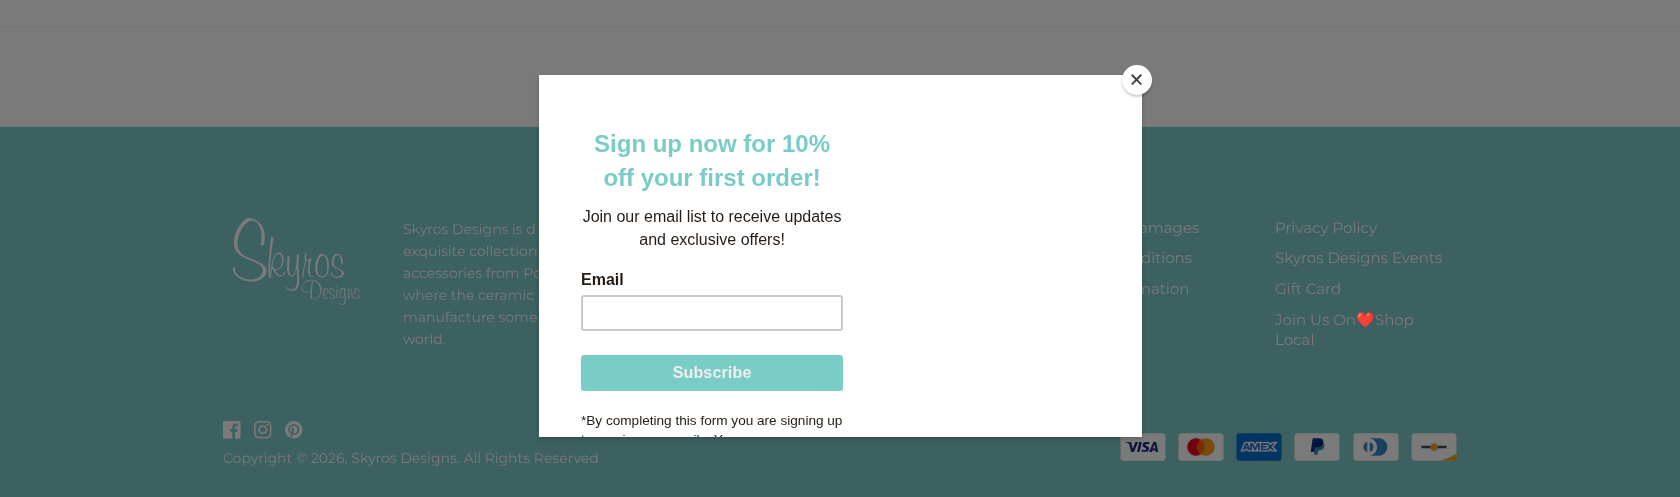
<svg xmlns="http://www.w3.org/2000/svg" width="1680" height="497">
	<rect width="100%" height="100%" fill="#7A7A7A" />
	<rect x="0" y="127" width="1680" height="370" fill="#3C6160" />
	<image x="1120" y="433" width="337" height="28" href="assets/img6.png" />
	<rect x="539" y="77" width="603" height="362" fill="#000000" fill-opacity="0.2" filter="blur(2px)" />
	<text x="403" y="278" font-family="Montserrat" font-size="14" fill="#7A7A7A">accessories from Po</text>
	<g font-family="Montserrat" font-size="15" fill="#7A7A7A">
		<text x="1139" y="233">amages</text>
		<text x="1141" y="263">ditions</text>
		<text x="1135" y="294">mation</text>
	</g>
	<image x="539" y="75" width="603" height="362" href="assets/img1.png" />
	<rect x="1122" y="67" width="30" height="30" rx="15" fill="#000000" fill-opacity="0.2" filter="blur(1px)" />
	<circle cx="1137" cy="80" r="15" fill="#FFFFFF" />
	<path d="M1140.5 74L1142 75.5L1132.5 85L1131 84Z" fill="#414141" />
	<path d="M1131 75.5L1132.5 74L1142 84L1140.5 85Z" fill="#414141" />
	<rect x="0" y="26" width="1680" height="1" fill="#757575" />
	<image x="233" y="218" width="127" height="87" href="assets/img2.png" />
	<g font-family="Montserrat" font-size="14" fill="#7A7A7A">
		<text x="403" y="234">Skyros Designs is d</text>
		<text x="403" y="256">exquisite collection</text>
		<text x="403" y="300">where the ceramic</text>
		<text x="403" y="322">manufacture some</text>
		<text x="403" y="344">world.</text>
	</g>
	<g font-family="Montserrat" font-size="15" fill="#7A7A7A">
		<text x="1275" y="233">Privacy Policy</text>
		<text x="1275" y="263">Skyros Designs Events</text>
		<text x="1275" y="294">Gift Card</text>
		<text x="1275" y="325">Join Us On</text>
	</g>
	<text x="1356" y="325" font-family="Noto Color Emoji" font-size="15" fill="#7A7A7A">❤️</text>
	<g font-family="Montserrat" font-size="15" fill="#7A7A7A">
		<text x="1375" y="325">Shop</text>
		<text x="1275" y="345">Local</text>
	</g>
	<image x="223" y="421" width="18" height="18" href="assets/img3.png" />
	<image x="254" y="421" width="18" height="18" href="assets/img4.png" />
	<image x="285" y="421" width="18" height="18" href="assets/img5.png" />
	<text x="223" y="463" font-family="Montserrat" font-size="14" fill="#7A7A7A">Copyright © 2026, Skyros Designs. All Rights Reserved</text>
</svg>
